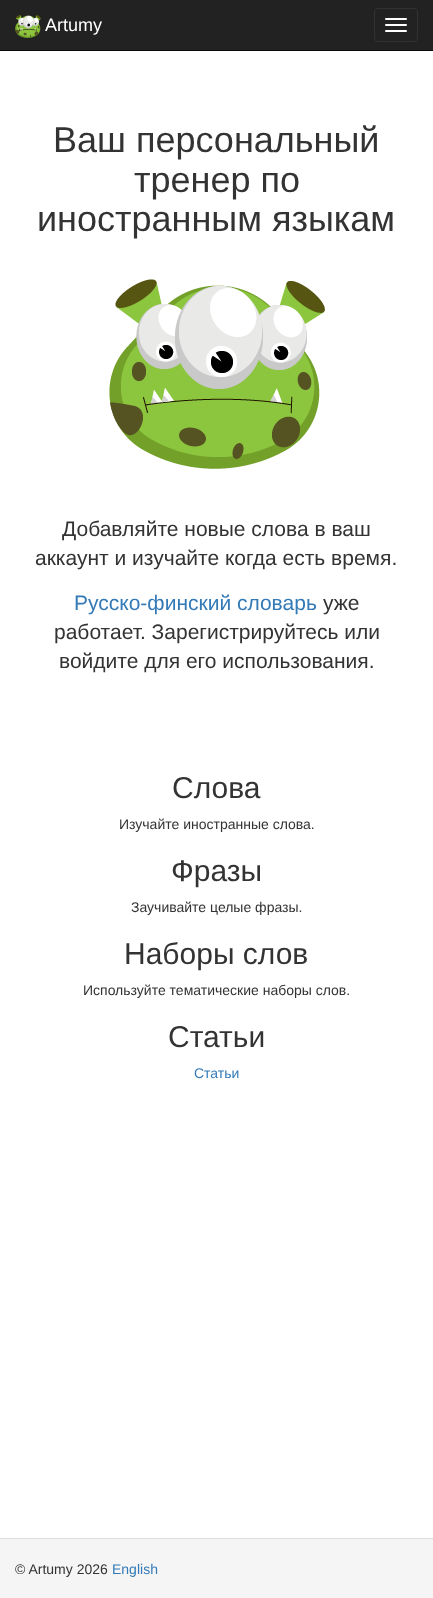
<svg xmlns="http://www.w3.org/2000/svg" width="433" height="1598">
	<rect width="100%" height="100%" fill="#FFFFFF" />
	<rect x="0" y="0" width="433" height="50" fill="#222222" />
	<rect x="0" y="50" width="433" height="1" fill="#080808" />
	<image x="15" y="15" width="26" height="23" href="assets/img1.png" />
	<text x="45" y="31" font-family="Liberation Sans" font-size="18" fill="#FFFFFF">Artumy</text>
	<rect x="374.5" y="8.5" width="43" height="33" rx="3.5" fill="none" stroke="#333333" />
	<rect x="385" y="18" width="22" height="2" rx="1" fill="#FFFFFF" />
	<rect x="385" y="24" width="22" height="2" rx="1" fill="#FFFFFF" />
	<rect x="385" y="30" width="22" height="2" rx="1" fill="#FFFFFF" />
	<g font-family="Liberation Sans" font-size="36" fill="#333333">
		<text x="53" y="152">Ваш персональный</text>
		<text x="134" y="192">тренер по</text>
		<text x="37" y="231">иностранным языкам</text>
	</g>
	<image x="109" y="279" width="216" height="190" href="assets/img2.png" />
	<g font-family="Liberation Sans" font-size="21" fill="#333333">
		<text x="62" y="536">Добавляйте новые слова в ваш</text>
		<text x="35" y="565">аккаунт и изучайте когда есть время.</text>
	</g>
	<text x="74" y="610" font-family="Liberation Sans" font-size="21" fill="#337AB7">Русско-финский словарь</text>
	<g font-family="Liberation Sans" font-size="21" fill="#333333">
		<text x="323" y="610">уже</text>
		<text x="54" y="639">работает. Зарегистрируйтесь или</text>
		<text x="59" y="668">войдите для его использования.</text>
	</g>
	<text x="172" y="798" font-family="Liberation Sans" font-size="30" fill="#333333">Слова</text>
	<text x="119" y="829" font-family="Liberation Sans" font-size="14" fill="#333333">Изучайте иностранные слова.</text>
	<text x="171" y="881" font-family="Liberation Sans" font-size="30" fill="#333333">Фразы</text>
	<text x="131" y="912" font-family="Liberation Sans" font-size="14" fill="#333333">Заучивайте целые фразы.</text>
	<text x="124" y="964" font-family="Liberation Sans" font-size="30" fill="#333333">Наборы слов</text>
	<text x="83" y="995" font-family="Liberation Sans" font-size="14" fill="#333333">Используйте тематические наборы слов.</text>
	<text x="168" y="1047" font-family="Liberation Sans" font-size="30" fill="#333333">Статьи</text>
	<text x="194" y="1078" font-family="Liberation Sans" font-size="14" fill="#337AB7">Статьи</text>
	<rect x="0" y="1539" width="433" height="59" fill="#F5F5F5" />
	<rect x="0" y="1538" width="433" height="1" fill="#DDDDDD" />
	<text x="15" y="1574" font-family="Liberation Sans" font-size="14" fill="#333333">© Artumy 2026</text>
	<text x="112" y="1574" font-family="Liberation Sans" font-size="14" fill="#337AB7">English</text>
</svg>
